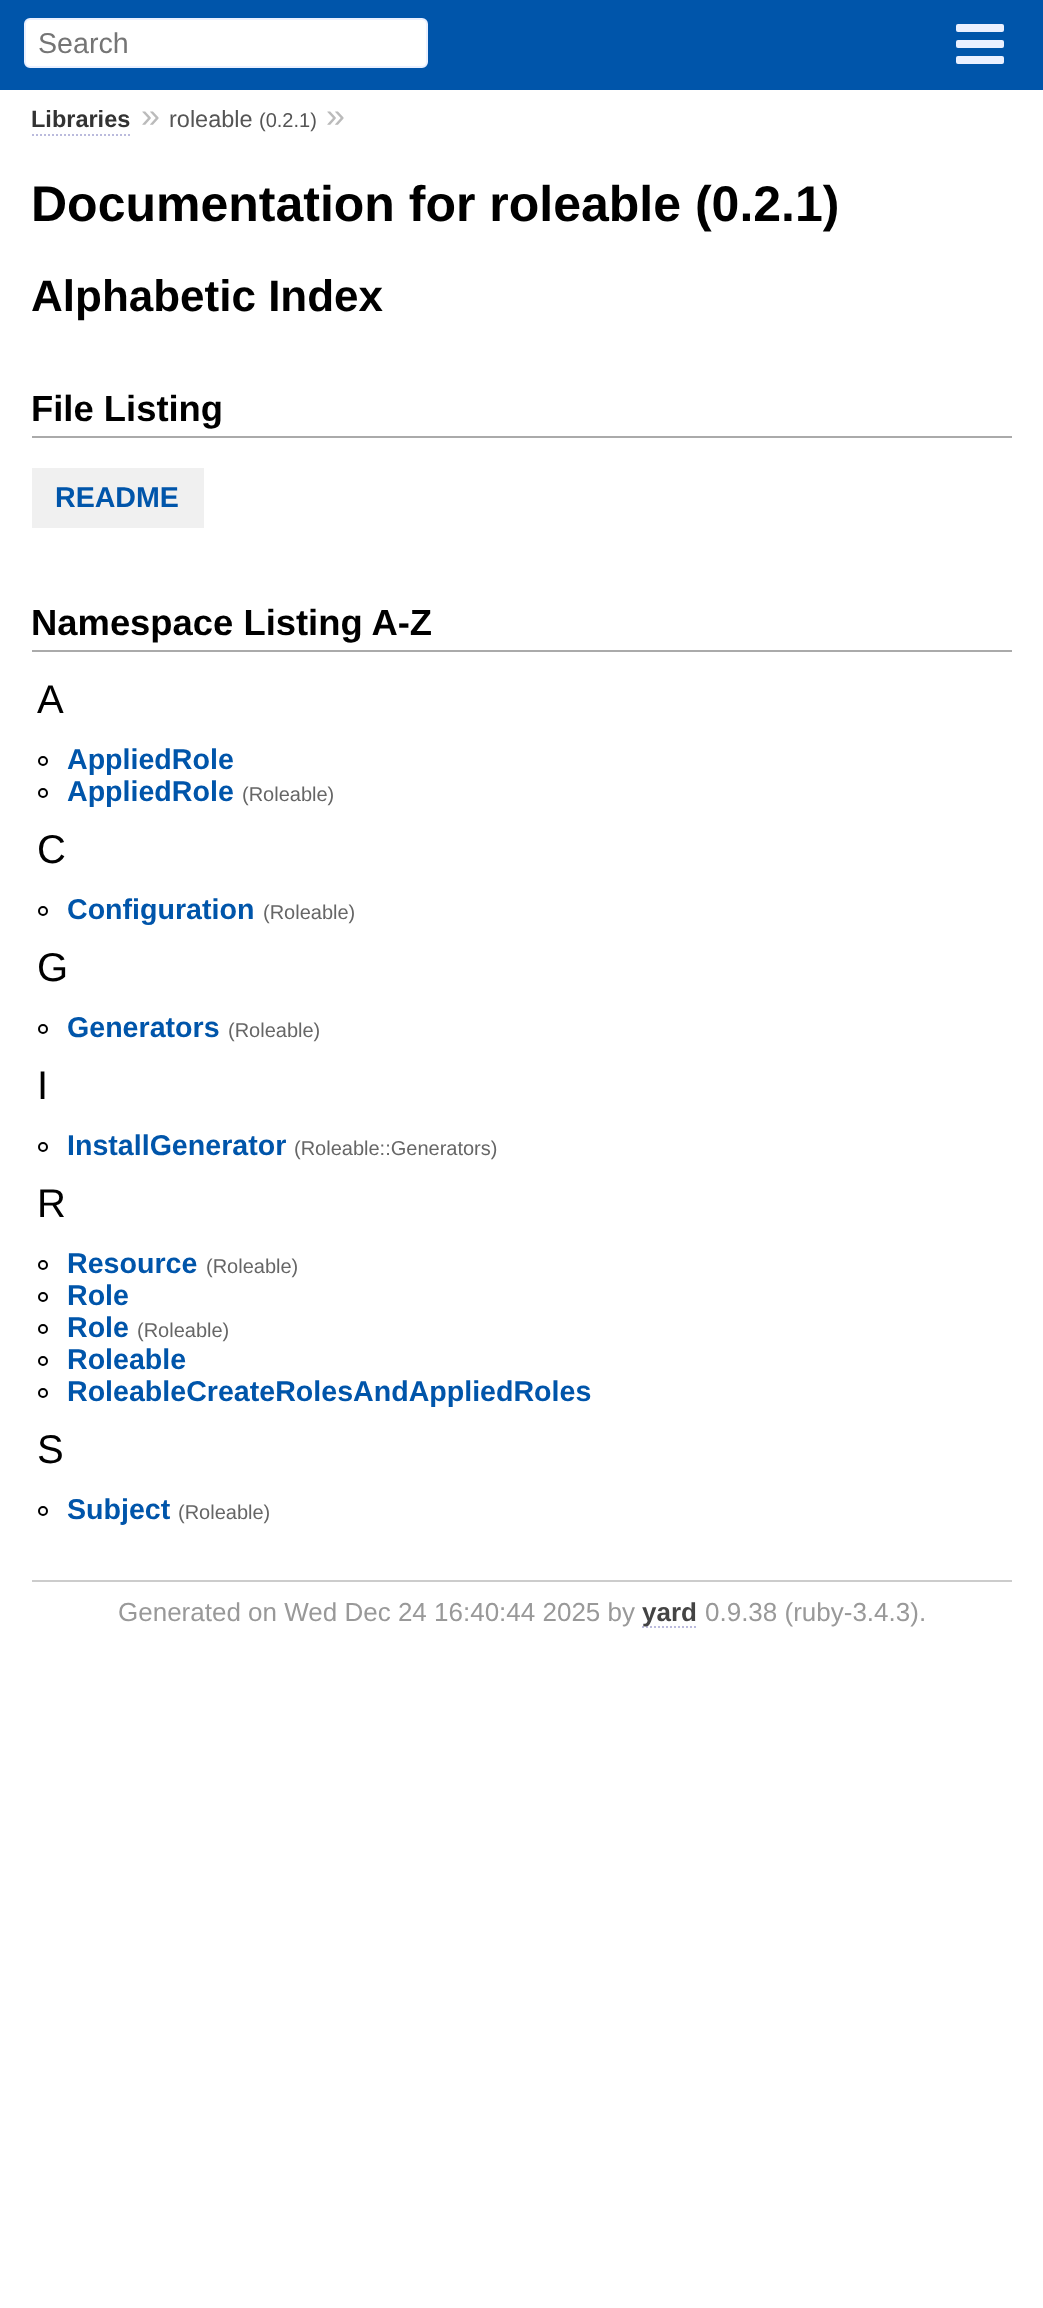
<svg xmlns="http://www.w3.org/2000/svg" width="1043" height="2308">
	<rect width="100%" height="100%" fill="#FFFFFF" />
	<rect x="0" y="0" width="1043" height="90" fill="#0055AA" />
	<rect x="25" y="19" width="402" height="48" rx="5" fill="#FFFFFF" stroke="#EAF0FF" stroke-width="2" />
	<text x="38" y="53" font-family="Liberation Sans" font-size="28.6" fill="#757575">Search</text>
	<rect x="956" y="24" width="48" height="8" rx="2" fill="#EAF0FF" />
	<rect x="956" y="40" width="48" height="8" rx="2" fill="#EAF0FF" />
	<rect x="956" y="56" width="48" height="8" rx="2" fill="#EAF0FF" />
	<text x="31" y="127" font-family="Liberation Sans" font-size="23.5" font-weight="700" fill="#333333">Libraries</text>
	<path d="M32 135H132" fill="none" stroke="#BBBBDD" stroke-width="2" stroke-dasharray="2 2" />
	<text x="141" y="127" font-family="Liberation Sans" font-size="34" fill="#BBBBBB">»</text>
	<text x="169" y="127" font-family="Liberation Sans" font-size="23.5" fill="#555555">roleable</text>
	<text x="259" y="127" font-family="Liberation Sans" font-size="20" fill="#555555">(0.2.1)</text>
	<text x="326" y="127" font-family="Liberation Sans" font-size="34" fill="#BBBBBB">»</text>
	<text x="31" y="221" font-family="Liberation Sans" font-size="50" font-weight="700" fill="#000000">Documentation for roleable (0.2.1)</text>
	<text x="31" y="311" font-family="Liberation Sans" font-size="44" font-weight="700" fill="#000000">Alphabetic Index</text>
	<rect x="32" y="436" width="980" height="2" fill="#AAAAAA" />
	<text x="31" y="421" font-family="Liberation Sans" font-size="36.4" font-weight="700" fill="#000000">File Listing</text>
	<rect x="32" y="468" width="172" height="60" fill="#F0F0F0" />
	<text x="55" y="507" font-family="Liberation Sans" font-size="28.6" font-weight="700" fill="#0055AA">README</text>
	<rect x="32" y="650" width="980" height="2" fill="#AAAAAA" />
	<text x="31" y="635" font-family="Liberation Sans" font-size="36.4" font-weight="700" fill="#000000">Namespace Listing A-Z</text>
	<text x="37" y="713" font-family="Liberation Sans" font-size="40" fill="#000000">A</text>
	<circle cx="43" cy="761" r="4" fill="none" stroke="#000000" stroke-width="2" />
	<text x="67" y="769" font-family="Liberation Sans" font-size="28.6" font-weight="700" fill="#0055AA">AppliedRole</text>
	<circle cx="43" cy="793" r="4" fill="none" stroke="#000000" stroke-width="2" />
	<text x="67" y="801" font-family="Liberation Sans" font-size="28.6" font-weight="700" fill="#0055AA">AppliedRole</text>
	<text x="242" y="801" font-family="Liberation Sans" font-size="20" fill="#666666">(Roleable)</text>
	<text x="37" y="863" font-family="Liberation Sans" font-size="40" fill="#000000">C</text>
	<circle cx="43" cy="911" r="4" fill="none" stroke="#000000" stroke-width="2" />
	<text x="67" y="919" font-family="Liberation Sans" font-size="28.6" font-weight="700" fill="#0055AA">Configuration</text>
	<text x="263" y="919" font-family="Liberation Sans" font-size="20" fill="#666666">(Roleable)</text>
	<text x="37" y="981" font-family="Liberation Sans" font-size="40" fill="#000000">G</text>
	<circle cx="43" cy="1029" r="4" fill="none" stroke="#000000" stroke-width="2" />
	<text x="67" y="1037" font-family="Liberation Sans" font-size="28.6" font-weight="700" fill="#0055AA">Generators</text>
	<text x="228" y="1037" font-family="Liberation Sans" font-size="20" fill="#666666">(Roleable)</text>
	<text x="37" y="1099" font-family="Liberation Sans" font-size="40" fill="#000000">I</text>
	<circle cx="43" cy="1147" r="4" fill="none" stroke="#000000" stroke-width="2" />
	<text x="67" y="1155" font-family="Liberation Sans" font-size="28.6" font-weight="700" fill="#0055AA">InstallGenerator</text>
	<text x="294" y="1155" font-family="Liberation Sans" font-size="20" fill="#666666">(Roleable::Generators)</text>
	<text x="37" y="1217" font-family="Liberation Sans" font-size="40" fill="#000000">R</text>
	<circle cx="43" cy="1265" r="4" fill="none" stroke="#000000" stroke-width="2" />
	<text x="67" y="1273" font-family="Liberation Sans" font-size="28.6" font-weight="700" fill="#0055AA">Resource</text>
	<text x="206" y="1273" font-family="Liberation Sans" font-size="20" fill="#666666">(Roleable)</text>
	<circle cx="43" cy="1297" r="4" fill="none" stroke="#000000" stroke-width="2" />
	<text x="67" y="1305" font-family="Liberation Sans" font-size="28.6" font-weight="700" fill="#0055AA">Role</text>
	<circle cx="43" cy="1329" r="4" fill="none" stroke="#000000" stroke-width="2" />
	<text x="67" y="1337" font-family="Liberation Sans" font-size="28.6" font-weight="700" fill="#0055AA">Role</text>
	<text x="137" y="1337" font-family="Liberation Sans" font-size="20" fill="#666666">(Roleable)</text>
	<circle cx="43" cy="1361" r="4" fill="none" stroke="#000000" stroke-width="2" />
	<text x="67" y="1369" font-family="Liberation Sans" font-size="28.6" font-weight="700" fill="#0055AA">Roleable</text>
	<circle cx="43" cy="1393" r="4" fill="none" stroke="#000000" stroke-width="2" />
	<text x="67" y="1401" font-family="Liberation Sans" font-size="28.6" font-weight="700" fill="#0055AA">RoleableCreateRolesAndAppliedRoles</text>
	<text x="37" y="1463" font-family="Liberation Sans" font-size="40" fill="#000000">S</text>
	<circle cx="43" cy="1511" r="4" fill="none" stroke="#000000" stroke-width="2" />
	<text x="67" y="1519" font-family="Liberation Sans" font-size="28.6" font-weight="700" fill="#0055AA">Subject</text>
	<text x="178" y="1519" font-family="Liberation Sans" font-size="20" fill="#666666">(Roleable)</text>
	<rect x="32" y="1580" width="980" height="2" fill="#CCCCCC" />
	<text x="118" y="1621" font-family="Liberation Sans" font-size="26" fill="#999999">Generated on Wed Dec 24 16:40:44 2025 by</text>
	<path d="M642 1627H698" fill="none" stroke="#BBBBDD" stroke-width="2" stroke-dasharray="2 2" />
	<text x="642" y="1621" font-family="Liberation Sans" font-size="26" font-weight="700" fill="#444444">yard</text>
	<text x="705" y="1621" font-family="Liberation Sans" font-size="26" fill="#999999">0.9.38 (ruby-3.4.3).</text>
</svg>
